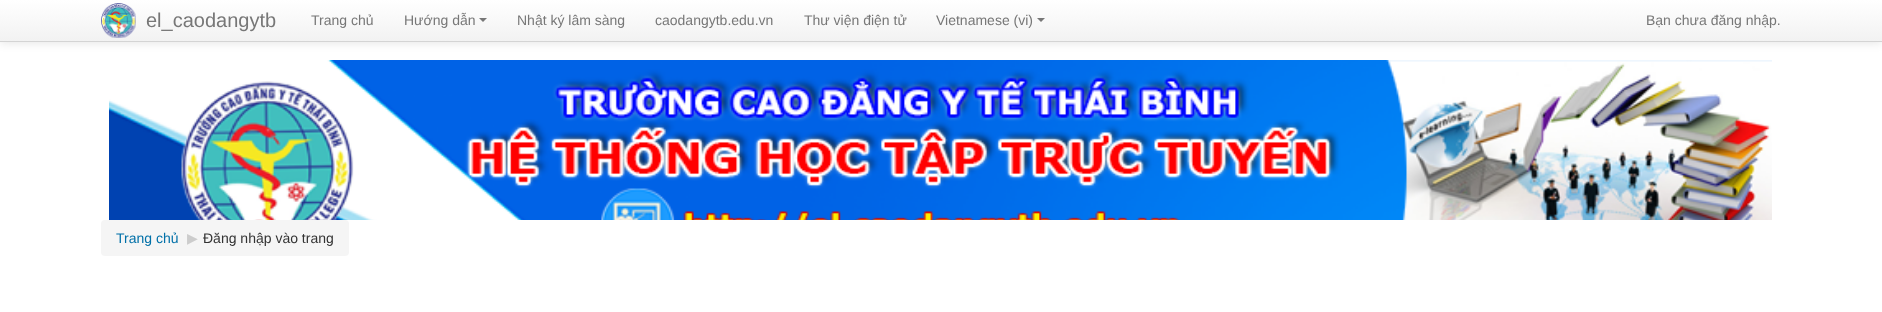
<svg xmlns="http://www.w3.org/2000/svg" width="1882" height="312">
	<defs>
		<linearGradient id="g1" gradientUnits="userSpaceOnUse" x1="941" y1="0" x2="941" y2="41"><stop offset="0" stop-color="#FFFFFF" /><stop offset="1" stop-color="#F2F2F2" /></linearGradient>
	</defs>
	<rect width="100%" height="100%" fill="#FFFFFF" />
	<rect x="0" y="1" width="1882" height="42" fill="#000000" fill-opacity="0.1" filter="blur(5px)" />
	<rect x="0" y="0" width="1882" height="41" fill="url(#g1)" />
	<rect x="0" y="41" width="1882" height="1" fill="#D4D4D4" />
	<image x="101" y="3" width="35" height="35" href="assets/img1.png" />
	<text x="146" y="27" font-family="Liberation Sans" font-size="20" fill="#777777">el_caodangytb</text>
	<g font-family="Liberation Sans" font-size="14" fill="#777777">
		<text x="311" y="25">Trang chủ</text>
		<text x="404" y="25">Hướng dẫn</text>
	</g>
	<path d="M479 18H487L483 22Z" fill="#777777" />
	<g font-family="Liberation Sans" font-size="14" fill="#777777">
		<text x="517" y="25">Nhật ký lâm sàng</text>
		<text x="655" y="25">caodangytb.edu.vn</text>
		<text x="804" y="25">Thư viện điện tử</text>
		<text x="936" y="25">Vietnamese (vi)</text>
	</g>
	<path d="M1037 18H1045L1041 22Z" fill="#777777" />
	<text x="1646" y="25" font-family="Liberation Sans" font-size="14" fill="#777777">Bạn chưa đăng nhập.</text>
	<image x="109" y="60" width="1663" height="160" href="assets/img2.png" />
	<rect x="101" y="220" width="248" height="36" rx="4" fill="#F5F5F5" />
	<text x="116" y="243" font-family="Liberation Sans" font-size="14" fill="#0070A8">Trang chủ</text>
	<text x="187" y="243" font-family="DejaVu Sans" font-size="14" fill="#CCCCCC">▶︎</text>
	<text x="203" y="243" font-family="Liberation Sans" font-size="14" fill="#333333">Đăng nhập vào trang</text>
</svg>
